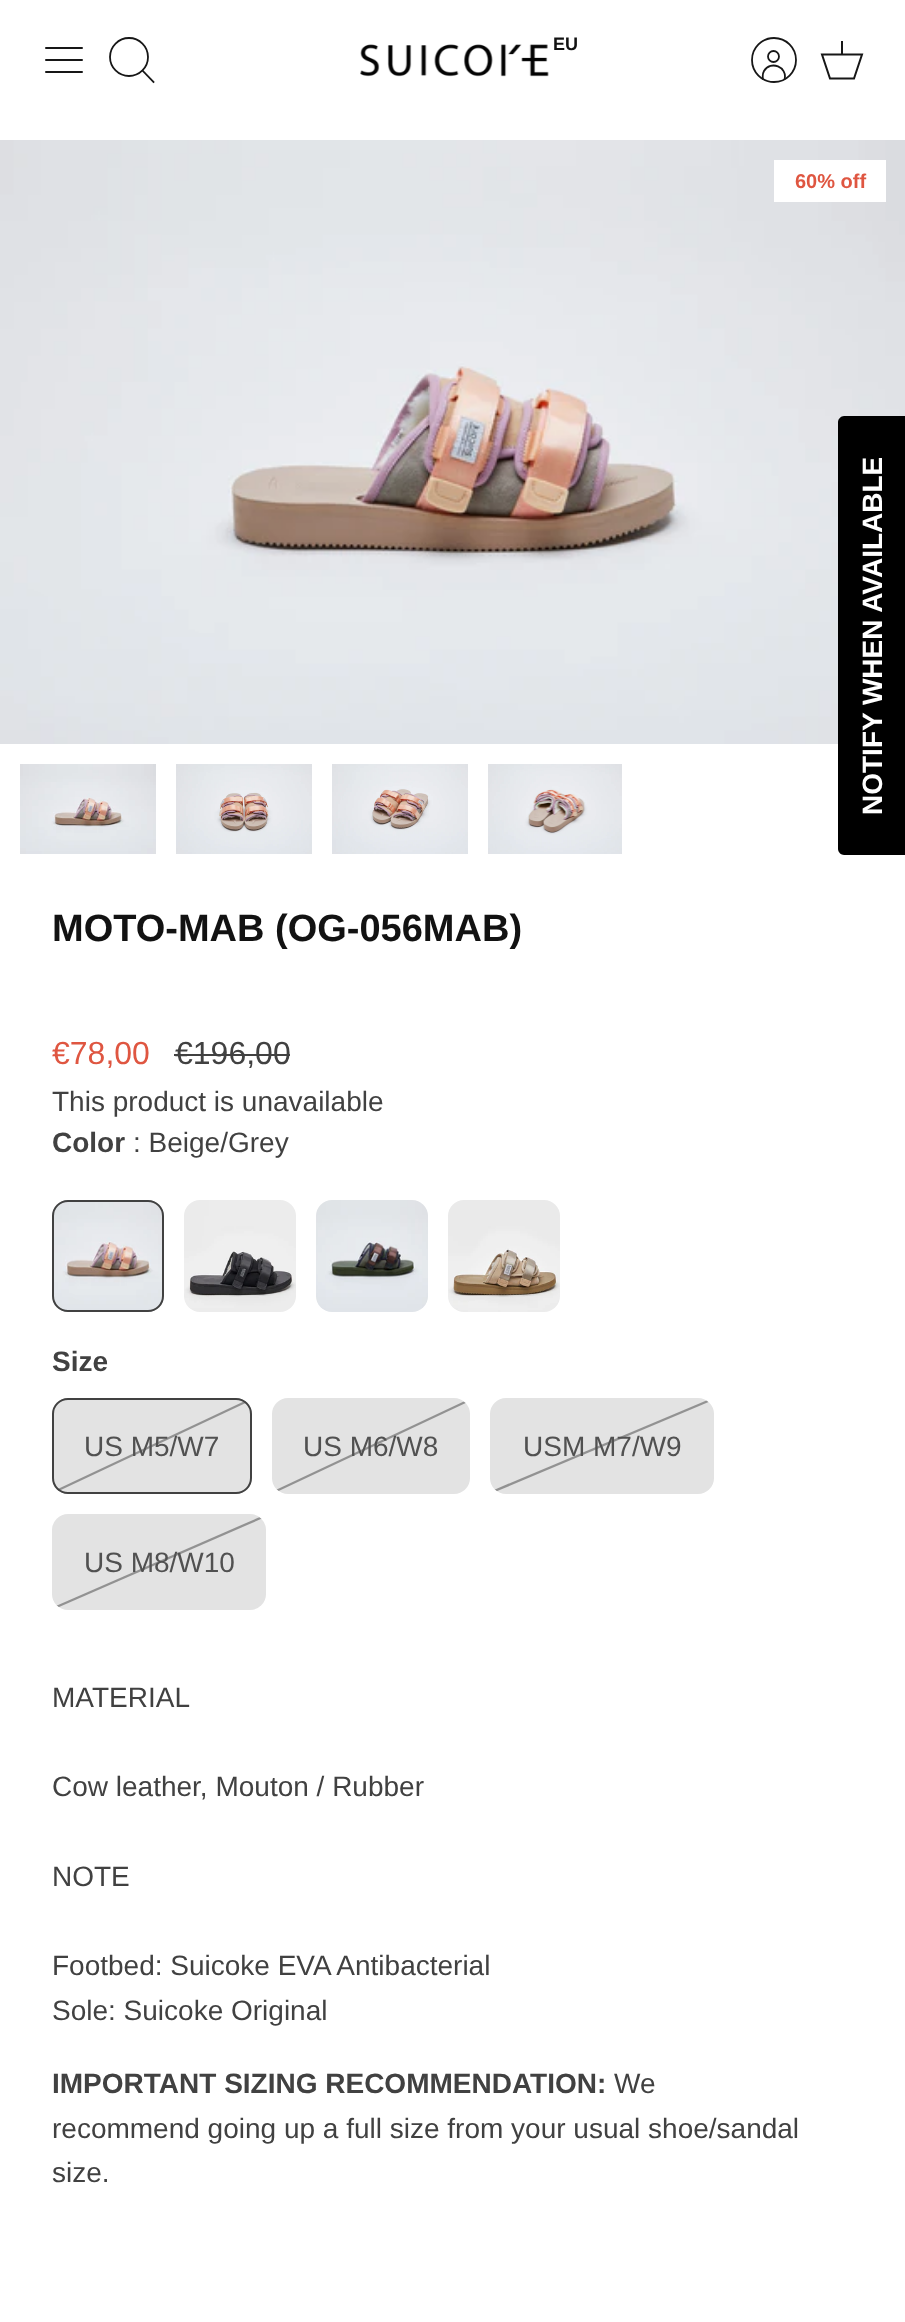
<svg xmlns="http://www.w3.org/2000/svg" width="905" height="2322">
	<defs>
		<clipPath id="clip1"><rect x="52" y="1398" width="200" height="96" rx="16" /></clipPath>
		<clipPath id="clip2"><rect x="272" y="1398" width="198" height="96" rx="16" /></clipPath>
		<clipPath id="clip3"><rect x="490" y="1398" width="224" height="96" rx="16" /></clipPath>
		<clipPath id="clip4"><rect x="52" y="1514" width="214" height="96" rx="16" /></clipPath>
	</defs>
	<rect width="100%" height="100%" fill="#FFFFFF" />
	<path d="M46 60H82M46 48H82M46 72H82" fill="none" stroke="#171717" stroke-width="2" stroke-linecap="round" stroke-linejoin="round" />
	<circle cx="129" cy="57" r="19" fill="none" stroke="#171717" stroke-width="1.8" />
	<path d="M143 71L153.5 82" fill="none" stroke="#171717" stroke-width="1.8" stroke-linecap="square" />
	<image x="360" y="44" width="189" height="33" href="assets/img1.png" />
	<text x="553" y="50" font-family="Liberation Sans" font-size="18" font-weight="700" fill="#121212">EU</text>
	<path d="M784.5 79.5C788 67 770.5 60 764 71C762.5 73.5 762.5 76.5 763 79.5" fill="none" stroke="#171717" stroke-width="1.8" />
	<circle cx="773.5" cy="56.5" r="5.5" fill="none" stroke="#171717" stroke-width="1.8" />
	<circle cx="774" cy="60" r="22" fill="none" stroke="#171717" stroke-width="1.8" />
	<path d="M822 54.5H862L854 78.5H830Z" fill="none" stroke="#171717" stroke-width="2" />
	<rect x="841" y="41" width="2" height="14" fill="#171717" />
	<image x="0" y="140" width="905" height="604" href="assets/img2.png" />
	<rect x="774" y="160" width="112" height="42" fill="#FFFFFF" />
	<text x="795" y="188" font-family="Liberation Sans" font-size="20" font-weight="700" fill="#DF5641">60% off</text>
	<image x="20" y="764" width="136" height="90" href="assets/img3.png" />
	<image x="176" y="764" width="136" height="90" href="assets/img4.png" />
	<image x="332" y="764" width="136" height="90" href="assets/img5.png" />
	<image x="488" y="764" width="134" height="90" href="assets/img6.png" />
	<text x="52" y="941" font-family="Liberation Sans" font-size="38" font-weight="700" fill="#121212">MOTO-MAB (OG-056MAB)</text>
	<text x="52" y="1064" font-family="Liberation Sans" font-size="32" fill="#DF5641">€78,00</text>
	<text x="175" y="1064" font-family="Liberation Sans" font-size="32" fill="#414141">€196,00</text>
	<rect x="174" y="1054" width="116" height="2" fill="#414141" />
	<text x="52" y="1111" font-family="Liberation Sans" font-size="28" fill="#414141">This product is unavailable</text>
	<text x="52" y="1152" font-family="Liberation Sans" font-size="28" font-weight="700" fill="#414141">Color</text>
	<text x="133" y="1152" font-family="Liberation Sans" font-size="28" fill="#414141">: Beige/Grey</text>
	<image x="52" y="1200" width="112" height="112" href="assets/img7.png" />
	<rect x="53" y="1201" width="110" height="110" rx="15" fill="none" stroke="#414141" stroke-width="2" />
	<image x="184" y="1200" width="112" height="112" href="assets/img8.png" />
	<image x="316" y="1200" width="112" height="112" href="assets/img9.png" />
	<image x="448" y="1200" width="112" height="112" href="assets/img10.png" />
	<text x="52" y="1371" font-family="Liberation Sans" font-size="28" font-weight="700" fill="#414141">Size</text>
	<rect x="52" y="1398" width="200" height="96" rx="16" fill="#E3E3E3" />
	<g clip-path="url(#clip1)">
		<path d="M249.5 1400L54 1492" fill="none" stroke="#414141" stroke-opacity="0.5" stroke-width="2.2" />
	</g>
	<rect x="53" y="1399" width="198" height="94" rx="15" fill="none" stroke="#414141" stroke-width="2" />
	<text x="84" y="1456" font-family="Liberation Sans" font-size="28" fill="#515151">US M5/W7</text>
	<rect x="272" y="1398" width="198" height="96" rx="16" fill="#E3E3E3" />
	<g clip-path="url(#clip2)">
		<path d="M469.5 1400L274 1492" fill="none" stroke="#414141" stroke-opacity="0.5" stroke-width="2.2" />
	</g>
	<text x="303" y="1456" font-family="Liberation Sans" font-size="28" fill="#515151">US M6/W8</text>
	<rect x="490" y="1398" width="224" height="96" rx="16" fill="#E3E3E3" />
	<g clip-path="url(#clip3)">
		<path d="M710.5 1400L492 1492" fill="none" stroke="#414141" stroke-opacity="0.5" stroke-width="2.4" />
	</g>
	<text x="523" y="1456" font-family="Liberation Sans" font-size="28" fill="#515151">USM M7/W9</text>
	<rect x="52" y="1514" width="214" height="96" rx="16" fill="#E3E3E3" />
	<g clip-path="url(#clip4)">
		<path d="M265 1516L54 1608" fill="none" stroke="#414141" stroke-opacity="0.5" stroke-width="2.3" />
	</g>
	<text x="84" y="1572" font-family="Liberation Sans" font-size="28" fill="#515151">US M8/W10</text>
	<g font-family="Liberation Sans" font-size="28" fill="#414141">
		<text x="52" y="1707">MATERIAL</text>
		<text x="52" y="1796">Cow leather, Mouton / Rubber</text>
		<text x="52" y="1886">NOTE</text>
		<text x="52" y="1975">Footbed: Suicoke EVA Antibacterial</text>
		<text x="52" y="2020">Sole: Suicoke Original</text>
	</g>
	<text x="52" y="2093" font-family="Liberation Sans" font-size="28" font-weight="700" fill="#414141">IMPORTANT SIZING RECOMMENDATION:</text>
	<g font-family="Liberation Sans" font-size="28" fill="#414141">
		<text x="614" y="2093">We</text>
		<text x="52" y="2138">recommend going up a full size from your usual shoe/sandal</text>
		<text x="52" y="2182">size.</text>
	</g>
	<path d="M838 849V422C838 419 841 416 844 416H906V855H844C841 855 838 852 838 849Z" fill="#000000" />
	<text x="882" y="815" transform="rotate(-90 882 815)" font-family="Liberation Sans" font-size="28" font-weight="700" fill="#FFFFFF">NOTIFY WHEN AVAILABLE</text>
</svg>
